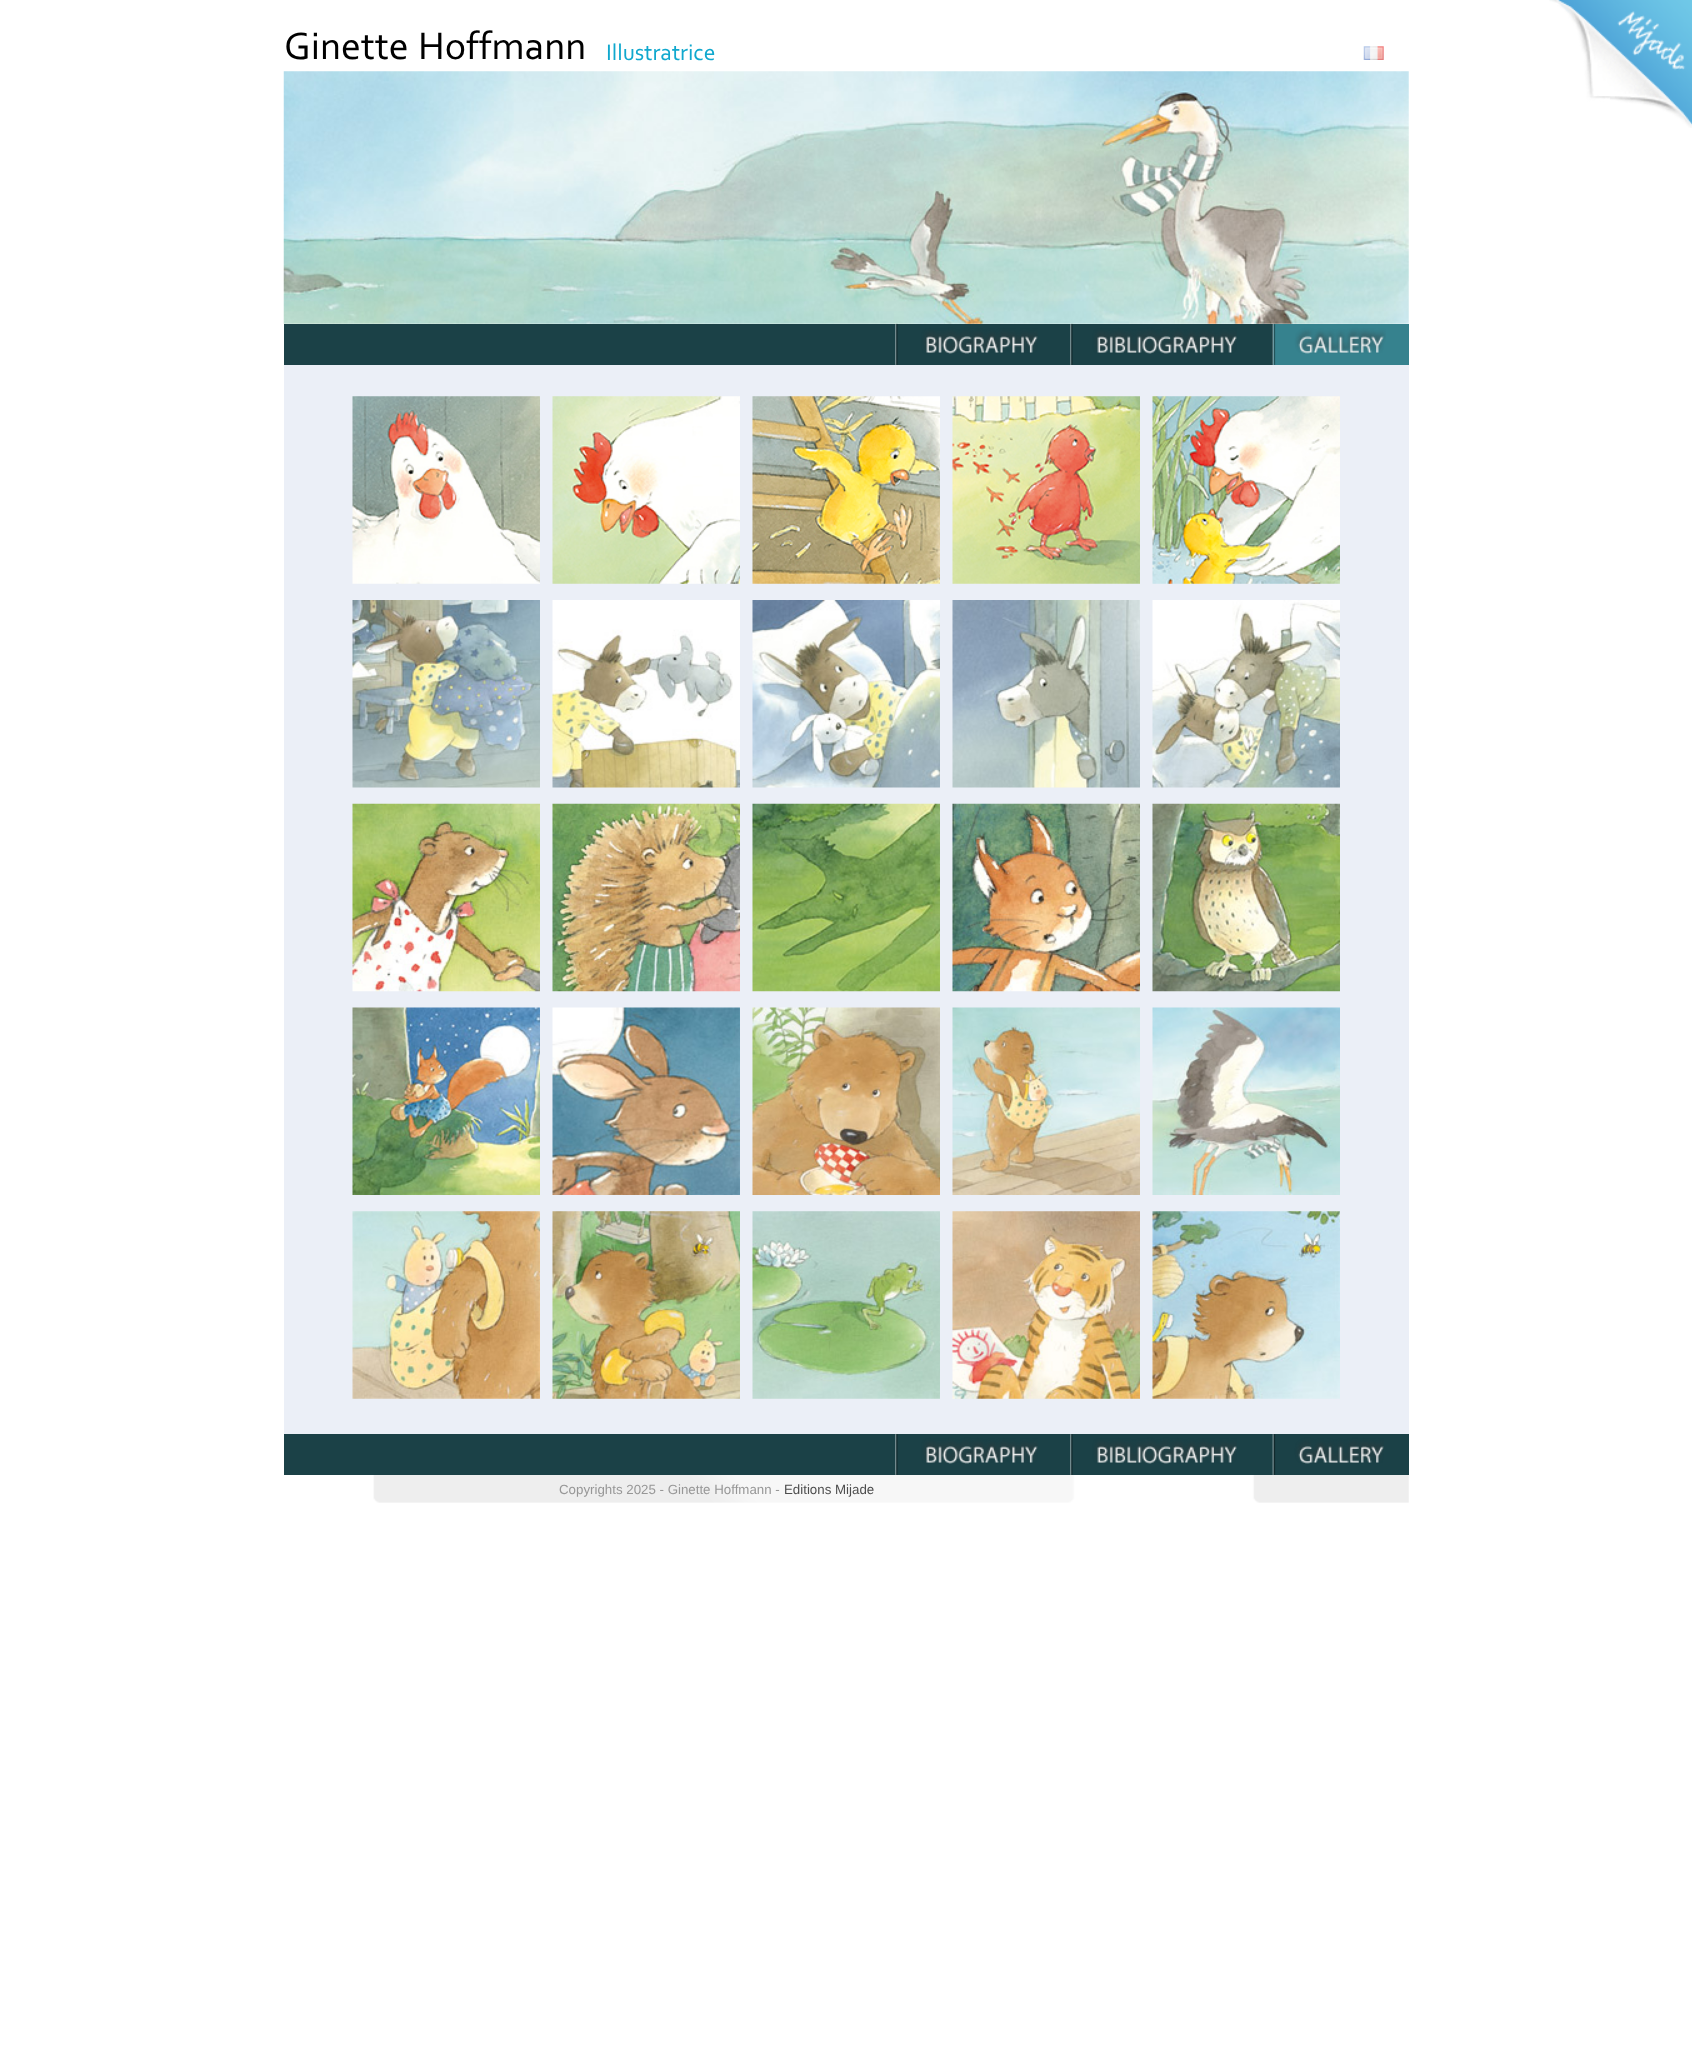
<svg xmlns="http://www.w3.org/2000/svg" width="1692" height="2066">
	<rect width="100%" height="100%" fill="#FFFFFF" />
	<g font-family="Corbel" font-size="40" fill="#000000">
		<text x="284" y="59">Ginette</text>
		<text x="418" y="59">Hoffmann</text>
	</g>
	<text x="606" y="60" font-family="Corbel" font-size="23.5" fill="#10A8CE">Illustratrice</text>
	<image x="1363" y="46" width="21" height="14" href="assets/img1.png" />
	<image x="283" y="71" width="1126" height="253" href="assets/img2.png" />
	<rect x="284" y="324" width="989" height="41" fill="#1B4147" />
	<image x="895" y="323" width="143" height="42" href="assets/img3.png" />
	<image x="1070" y="323" width="167" height="42" href="assets/img4.png" />
	<rect x="1273" y="324" width="136" height="41" fill="#36828E" />
	<image x="1272" y="323" width="114" height="42" href="assets/img5.png" />
	<rect x="284" y="365" width="1125" height="1069" fill="#EBEFF7" />
	<image x="352" y="396" width="188" height="188" href="assets/img6.png" />
	<image x="552" y="396" width="188" height="188" href="assets/img7.png" />
	<image x="752" y="396" width="188" height="188" href="assets/img8.png" />
	<image x="952" y="396" width="188" height="188" href="assets/img9.png" />
	<image x="1152" y="396" width="188" height="188" href="assets/img10.png" />
	<image x="352" y="600" width="188" height="188" href="assets/img11.png" />
	<image x="552" y="600" width="188" height="188" href="assets/img12.png" />
	<image x="752" y="600" width="188" height="188" href="assets/img13.png" />
	<image x="952" y="600" width="188" height="188" href="assets/img14.png" />
	<image x="1152" y="600" width="188" height="188" href="assets/img15.png" />
	<image x="352" y="803" width="188" height="189" href="assets/img16.png" />
	<image x="552" y="803" width="188" height="189" href="assets/img17.png" />
	<image x="752" y="803" width="188" height="189" href="assets/img18.png" />
	<image x="952" y="803" width="188" height="189" href="assets/img19.png" />
	<image x="1152" y="803" width="188" height="189" href="assets/img20.png" />
	<image x="352" y="1007" width="188" height="188" href="assets/img21.png" />
	<image x="552" y="1007" width="188" height="188" href="assets/img22.png" />
	<image x="752" y="1007" width="188" height="188" href="assets/img23.png" />
	<image x="952" y="1007" width="188" height="188" href="assets/img24.png" />
	<image x="1152" y="1007" width="188" height="188" href="assets/img25.png" />
	<image x="352" y="1211" width="188" height="188" href="assets/img26.png" />
	<image x="552" y="1211" width="188" height="188" href="assets/img27.png" />
	<image x="752" y="1211" width="188" height="188" href="assets/img28.png" />
	<image x="952" y="1211" width="188" height="188" href="assets/img29.png" />
	<image x="1152" y="1211" width="188" height="188" href="assets/img30.png" />
	<rect x="284" y="1434" width="1125" height="41" fill="#1B4147" />
	<image x="895" y="1434" width="143" height="41" href="assets/img31.png" />
	<image x="1070" y="1434" width="167" height="41" href="assets/img32.png" />
	<image x="1272" y="1434" width="112" height="41" href="assets/img33.png" />
	<image x="373" y="1475" width="1036" height="28" href="assets/img34.png" />
	<text x="559" y="1494" font-family="Liberation Sans" font-size="13.3" fill="#979797">Copyrights 2025 - Ginette Hoffmann -</text>
	<text x="784" y="1494" font-family="Liberation Sans" font-size="13.3" fill="#4D4D4D">Editions Mijade</text>
	<image x="1549" y="0" width="143" height="128" href="assets/img35.png" />
</svg>
